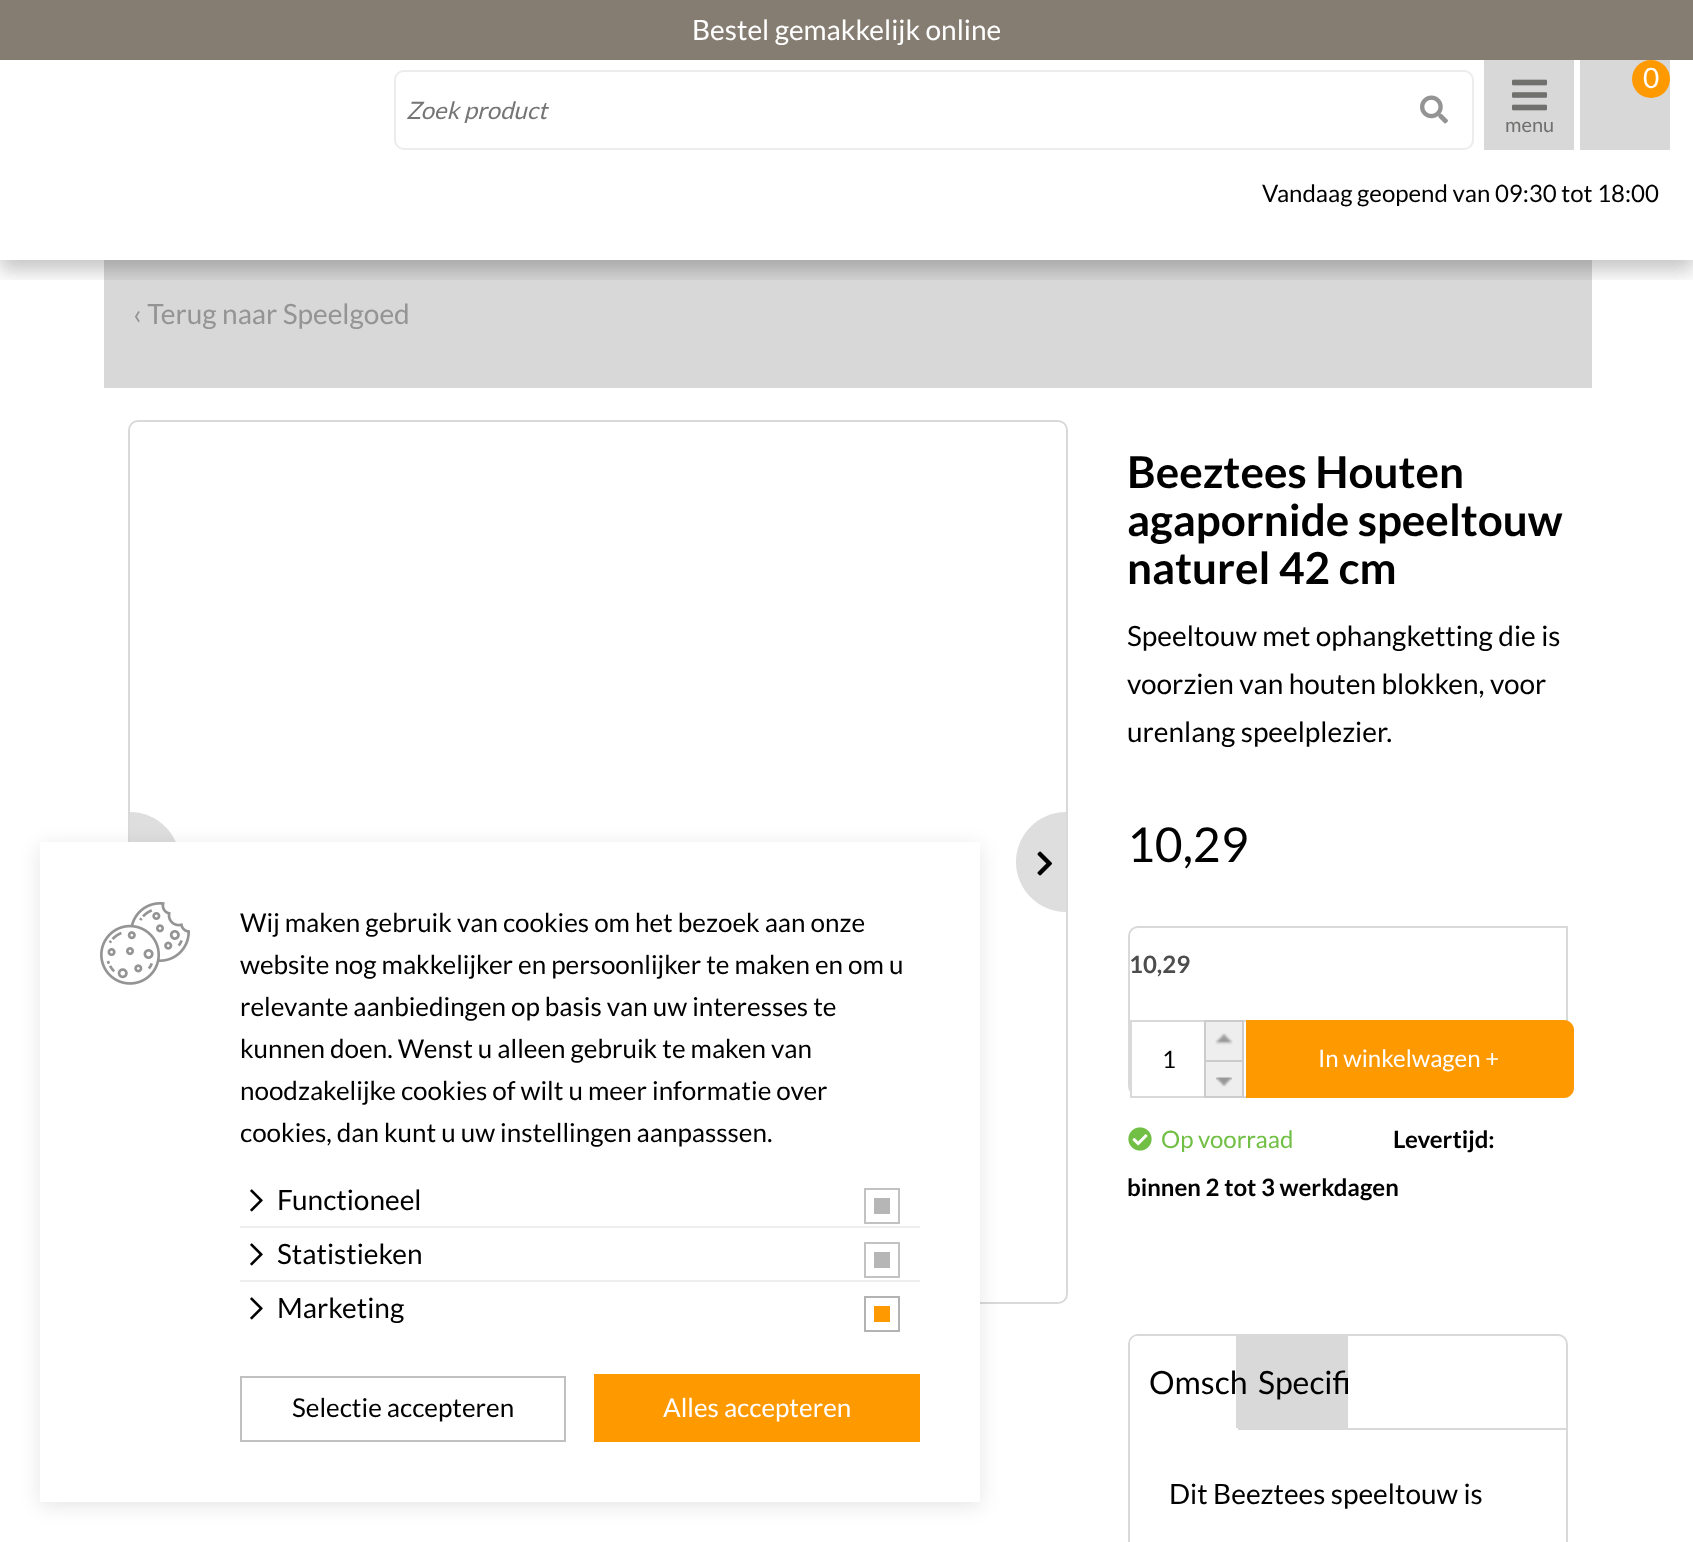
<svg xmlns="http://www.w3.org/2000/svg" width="1693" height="1542">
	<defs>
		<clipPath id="clip1"><rect x="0" y="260" width="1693" height="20" /></clipPath>
		<clipPath id="clip2"><rect x="1238" y="1336" width="110" height="92" /></clipPath>
	</defs>
	<rect width="100%" height="100%" fill="#FFFFFF" />
	<rect x="104" y="260" width="1488" height="128" fill="#D8D8D8" />
	<g clip-path="url(#clip1)">
		<rect x="0" y="10" width="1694" height="260" fill="#000000" fill-opacity="0.12" filter="blur(10px)" />
		<rect x="0" y="10" width="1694" height="260" fill="#000000" fill-opacity="0.12" filter="blur(10px)" />
	</g>
	<rect x="395" y="71" width="1078" height="78" rx="9" fill="none" stroke="#ECECEC" stroke-width="2" />
	<text x="406" y="119" font-family="Lato" font-size="24" font-style="italic" fill="#757575">Zoek product</text>
	<image x="1420" y="95" width="28" height="29" href="assets/img1.png" />
	<rect x="0" y="0" width="1693" height="60" fill="#867D72" />
	<text x="692" y="40" font-family="Lato" font-size="28" fill="#FFFFFF">Bestel gemakkelijk online</text>
	<rect x="1580" y="60" width="90" height="90" fill="#D8D8D8" />
	<circle cx="1651" cy="79" r="19" fill="#FF9900" />
	<text x="1643" y="88" font-family="Lato" font-size="28" fill="#FFFFFF">0</text>
	<rect x="1484" y="60" width="90" height="90" fill="#D8D8D8" />
	<image x="1512" y="79" width="35" height="32" href="assets/img2.png" />
	<text x="1505" y="132" font-family="Lato" font-size="20" fill="#70706F">menu</text>
	<text x="1262" y="202" font-family="Lato" font-size="24" fill="#000000">Vandaag geopend van 09:30 tot 18:00</text>
	<text x="133" y="324" font-family="Lato" font-size="28" fill="#949494">‹ Terug naar Speelgoed</text>
	<rect x="129" y="421" width="938" height="882" rx="9" fill="none" stroke="#D9D9D9" stroke-width="2" />
	<path d="M130 812C157.5 812 180 834.5 180 862C180 889.5 157.5 912 130 912Z" fill="#DEDEDE" />
	<path d="M1066 812V912C1038.5 912 1016 889.5 1016 862C1016 834.5 1038.5 812 1066 812Z" fill="#DEDEDE" />
	<image x="1037" y="851" width="15" height="25" href="assets/img3.png" />
	<g font-family="Lato" font-size="44" font-weight="700" fill="#000000">
		<text x="1127" y="488">Beeztees Houten</text>
		<text x="1127" y="536">agapornide speeltouw</text>
		<text x="1127" y="584">naturel 42 cm</text>
	</g>
	<g font-family="Lato" font-size="28" fill="#000000">
		<text x="1127" y="646">Speeltouw met ophangketting die is</text>
		<text x="1127" y="694">voorzien van houten blokken, voor</text>
		<text x="1127" y="742">urenlang speelplezier.</text>
	</g>
	<text x="1127" y="862" font-family="Lato" font-size="48" fill="#000000">10,29</text>
	<path d="M1138 927H1567V1095H1138C1133 1095 1129 1091 1129 1086V936C1129 931 1133 927 1138 927Z" fill="none" stroke="#D9D9D9" stroke-width="2" />
	<text x="1129" y="973" font-family="Lato" font-size="24" font-weight="700" fill="#4D4D4D">10,29</text>
	<rect x="1132" y="1091" width="114" height="5" fill="#FFFFFF" />
	<rect x="1131" y="1021" width="338" height="76" fill="none" stroke="#D9D9D9" stroke-width="2" />
	<text x="1162" y="1068" font-family="Lato" font-size="24" fill="#000000">1</text>
	<rect x="1206" y="1022" width="36" height="38" fill="#EEEEEE" />
	<image x="1215" y="1033" width="18" height="12" href="assets/img4.png" />
	<rect x="1204" y="1020" width="40" height="2" fill="#CCCCCC" />
	<rect x="1242" y="1020" width="2" height="40" fill="#CCCCCC" />
	<rect x="1204" y="1020" width="2" height="40" fill="#CCCCCC" />
	<rect x="1206" y="1062" width="36" height="34" fill="#EEEEEE" />
	<image x="1216" y="1077" width="16" height="10" href="assets/img5.png" />
	<rect x="1205" y="1061" width="38" height="36" fill="none" stroke="#CCCCCC" stroke-width="2" />
	<path d="M1246 1020H1564C1569.5 1020 1574 1024.5 1574 1030V1088C1574 1093.5 1569.5 1098 1564 1098H1246Z" fill="#FF9900" />
	<text x="1318" y="1067" font-family="Lato" font-size="24" fill="#FFFFFF">In winkelwagen +</text>
	<image x="1128" y="1127" width="24" height="24" href="assets/img6.png" />
	<text x="1161" y="1148" font-family="Lato" font-size="24" fill="#71BF44">Op voorraad</text>
	<g font-family="Lato" font-size="24" font-weight="700" fill="#000000">
		<text x="1393" y="1148">Levertijd:</text>
		<text x="1127" y="1196">binnen 2 tot 3 werkdagen</text>
	</g>
	<rect x="1129" y="1335" width="438" height="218" rx="9" fill="none" stroke="#D9D9D9" stroke-width="2" />
	<rect x="1238" y="1428" width="328" height="2" fill="#D9D9D9" />
	<path d="M1138 1336H1238V1428H1130V1344C1130 1339.5 1133.5 1336 1138 1336Z" fill="#FFFFFF" />
	<rect x="1236" y="1336" width="112" height="92" fill="#D9D9D9" />
	<text x="1149" y="1394" font-family="Lato" font-size="32" fill="#000000">Omsch</text>
	<g clip-path="url(#clip2)">
		<text x="1258" y="1394" font-family="Lato" font-size="32" fill="#000000">Specifi</text>
	</g>
	<text x="1169" y="1504" font-family="Lato" font-size="28" fill="#000000">Dit Beeztees speeltouw is</text>
	<rect x="40" y="846" width="940" height="660" fill="#000000" fill-opacity="0.1" filter="blur(10px)" />
	<rect x="40" y="842" width="940" height="660" fill="#FFFFFF" />
	<image x="100" y="902" width="90" height="83" href="assets/img7.png" />
	<g font-family="Lato" font-size="26" fill="#000000">
		<text x="240" y="932">Wij maken gebruik van cookies om het bezoek aan onze</text>
		<text x="240" y="974">website nog makkelijker en persoonlijker te maken en om u</text>
		<text x="240" y="1016">relevante aanbiedingen op basis van uw interesses te</text>
		<text x="240" y="1058">kunnen doen. Wenst u alleen gebruik te maken van</text>
		<text x="240" y="1100">noodzakelijke cookies of wilt u meer informatie over</text>
		<text x="240" y="1142">cookies, dan kunt u uw instellingen aanpasssen.</text>
	</g>
	<image x="250" y="1189" width="13" height="23" href="assets/img8.png" />
	<text x="277" y="1210" font-family="Lato" font-size="28" fill="#000000">Functioneel</text>
	<rect x="865" y="1189" width="34" height="34" fill="none" stroke="#C2C2C2" stroke-width="2" />
	<rect x="874" y="1198" width="16" height="16" fill="#B6B6B6" />
	<rect x="240" y="1226" width="680" height="2" fill="#EEEEEE" />
	<image x="250" y="1243" width="13" height="23" href="assets/img8.png" />
	<text x="277" y="1264" font-family="Lato" font-size="28" fill="#000000">Statistieken</text>
	<rect x="865" y="1243" width="34" height="34" fill="none" stroke="#C2C2C2" stroke-width="2" />
	<rect x="874" y="1252" width="16" height="16" fill="#B6B6B6" />
	<rect x="240" y="1280" width="680" height="2" fill="#EEEEEE" />
	<image x="250" y="1297" width="13" height="23" href="assets/img8.png" />
	<text x="277" y="1318" font-family="Lato" font-size="28" fill="#000000">Marketing</text>
	<rect x="865" y="1297" width="34" height="34" fill="none" stroke="#B3B3B3" stroke-width="2" />
	<rect x="874" y="1306" width="16" height="16" fill="#FF9900" />
	<rect x="241" y="1377" width="324" height="64" fill="none" stroke="#C0C0C0" stroke-width="2" />
	<text x="292" y="1417" font-family="Lato" font-size="26" fill="#000000">Selectie accepteren</text>
	<rect x="594" y="1374" width="326" height="68" fill="#FF9900" />
	<text x="663" y="1417" font-family="Lato" font-size="26" fill="#FFFFFF">Alles accepteren</text>
</svg>
